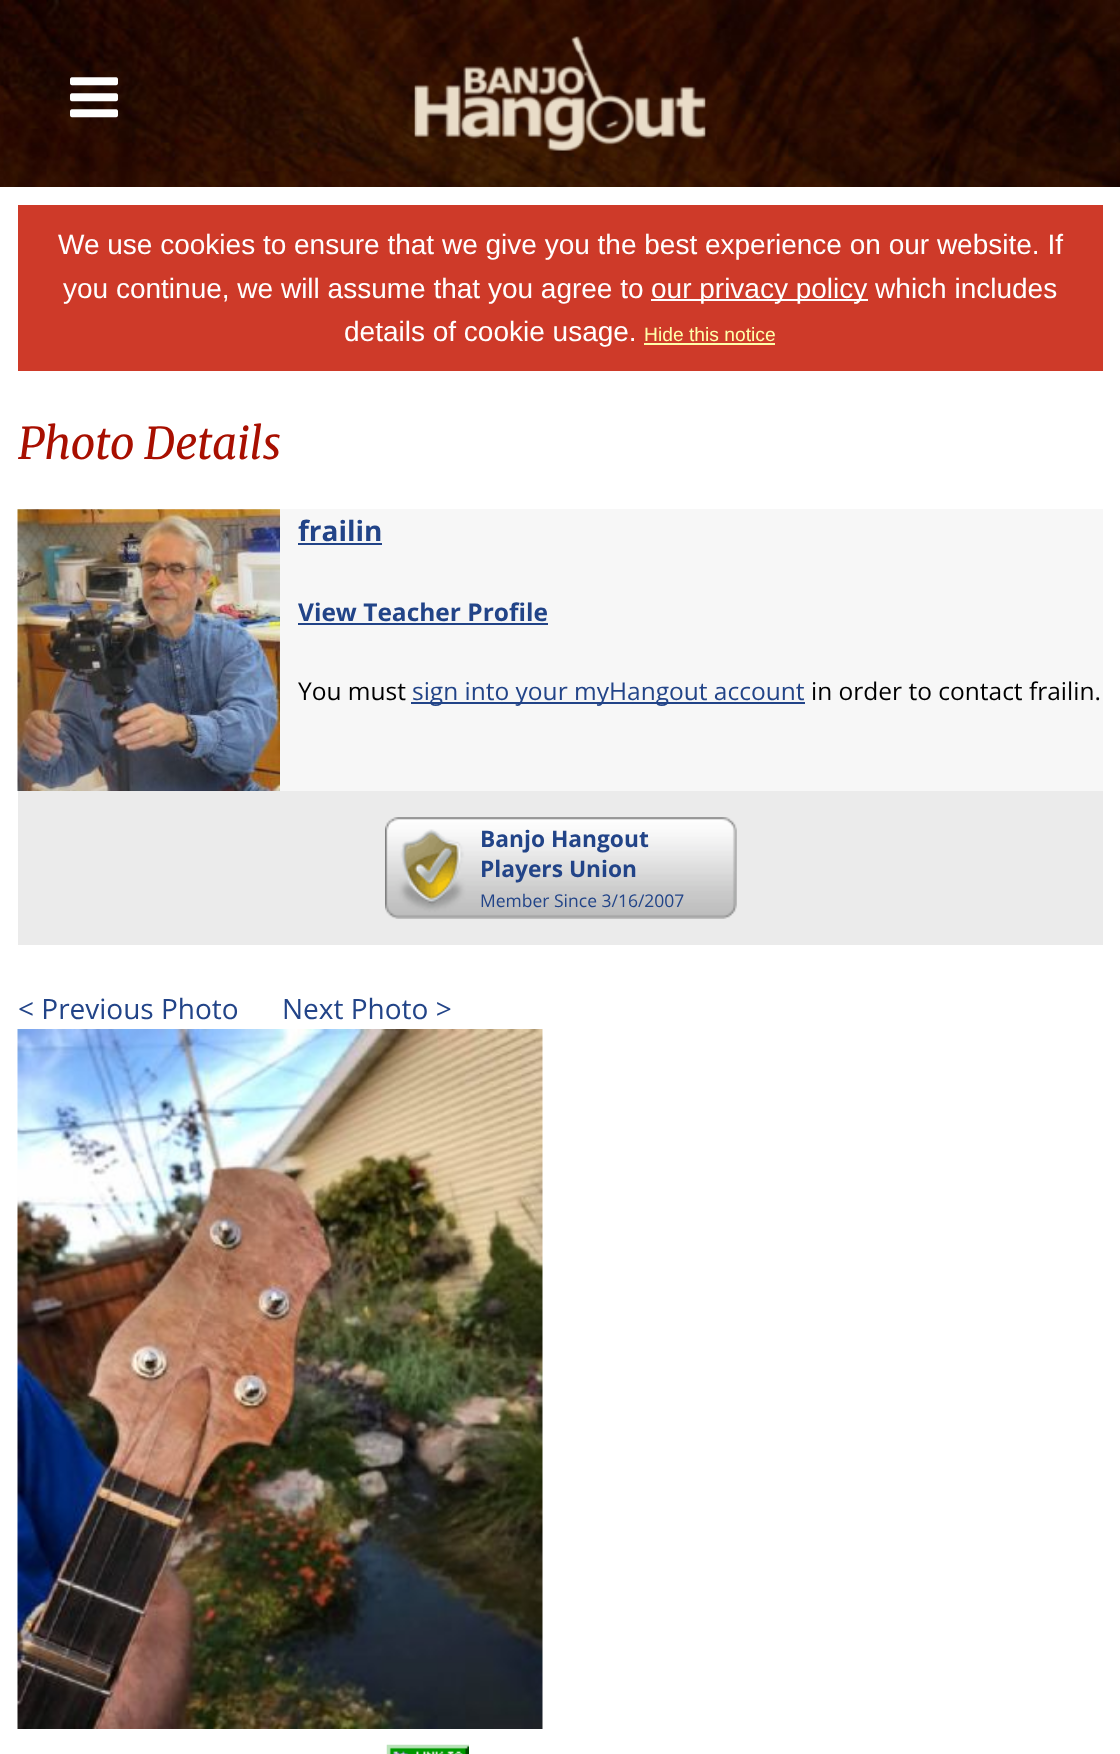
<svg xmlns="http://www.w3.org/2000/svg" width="1120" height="1754">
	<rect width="100%" height="100%" fill="#FFFFFF" />
	<image x="0" y="0" width="1120" height="187" href="assets/img1.png" />
	<image x="70" y="77" width="48" height="41" href="assets/img2.png" />
	<image x="414" y="36" width="292" height="115" href="assets/img3.png" />
	<rect x="18" y="205" width="1085" height="166" fill="#CE3A29" />
	<g font-family="Liberation Sans" font-size="28" fill="#FFFFFF">
		<text x="58" y="254">We use cookies to ensure that we give you the best experience on our website. If</text>
		<text x="63" y="298">you continue, we will assume that you agree to</text>
	</g>
	<rect x="651" y="299" width="217" height="2" fill="#FFFFFF" />
	<g font-family="Liberation Sans" font-size="28" fill="#FFFFFF">
		<text x="651" y="298">our privacy policy which includes</text>
		<text x="344" y="341">details of cookie usage.</text>
	</g>
	<text x="644" y="341" font-family="Liberation Sans" font-size="19.25" fill="#FFFFAA">Hide this notice</text>
	<rect x="644" y="343" width="131" height="2" fill="#FFFFAA" />
	<text x="18" y="459" font-family="Merriweather" font-size="43.75" font-style="italic" fill="#A80F00">Photo Details</text>
	<rect x="18" y="791" width="1085" height="154" fill="#EBEBEB" />
	<rect x="19" y="510" width="1083" height="280" fill="none" stroke="#F1F1F1" stroke-width="2" />
	<image x="17" y="509" width="263" height="282" href="assets/img4.png" />
	<rect x="280" y="509" width="823" height="282" fill="#F7F7F7" />
	<text x="298" y="541" font-family="Open Sans" font-size="28" font-weight="700" fill="#224488">frailin</text>
	<rect x="298" y="543" width="84" height="2" fill="#224488" />
	<text x="298" y="621" font-family="Open Sans" font-size="24.5" font-weight="700" fill="#224488">View Teacher Profile</text>
	<rect x="298" y="623" width="250" height="2" fill="#224488" />
	<text x="298" y="700" font-family="Open Sans" font-size="24.5" fill="#000000">You must</text>
	<rect x="411" y="702" width="394" height="2" fill="#224488" />
	<text x="412" y="700" font-family="Open Sans" font-size="24.5" fill="#224488">sign into your myHangout account</text>
	<text x="811" y="700" font-family="Open Sans" font-size="24.5" fill="#000000">in order to contact frailin.</text>
	<image x="385" y="817" width="352" height="102" href="assets/img5.png" />
	<g font-family="Open Sans" font-size="22.75" font-weight="700" fill="#224488">
		<text x="480" y="847">Banjo Hangout</text>
		<text x="480" y="877">Players Union</text>
	</g>
	<text x="480" y="907" font-family="Open Sans" font-size="17.5" fill="#224488">Member Since 3/16/2007</text>
	<g font-family="Open Sans" font-size="28" fill="#224488">
		<text x="18" y="1019">&lt; Previous Photo</text>
		<text x="282" y="1019">Next Photo &gt;</text>
	</g>
	<image x="17" y="1029" width="526" height="700" href="assets/img6.png" />
	<image x="386" y="1744" width="83" height="10" href="assets/img7.png" />
</svg>
